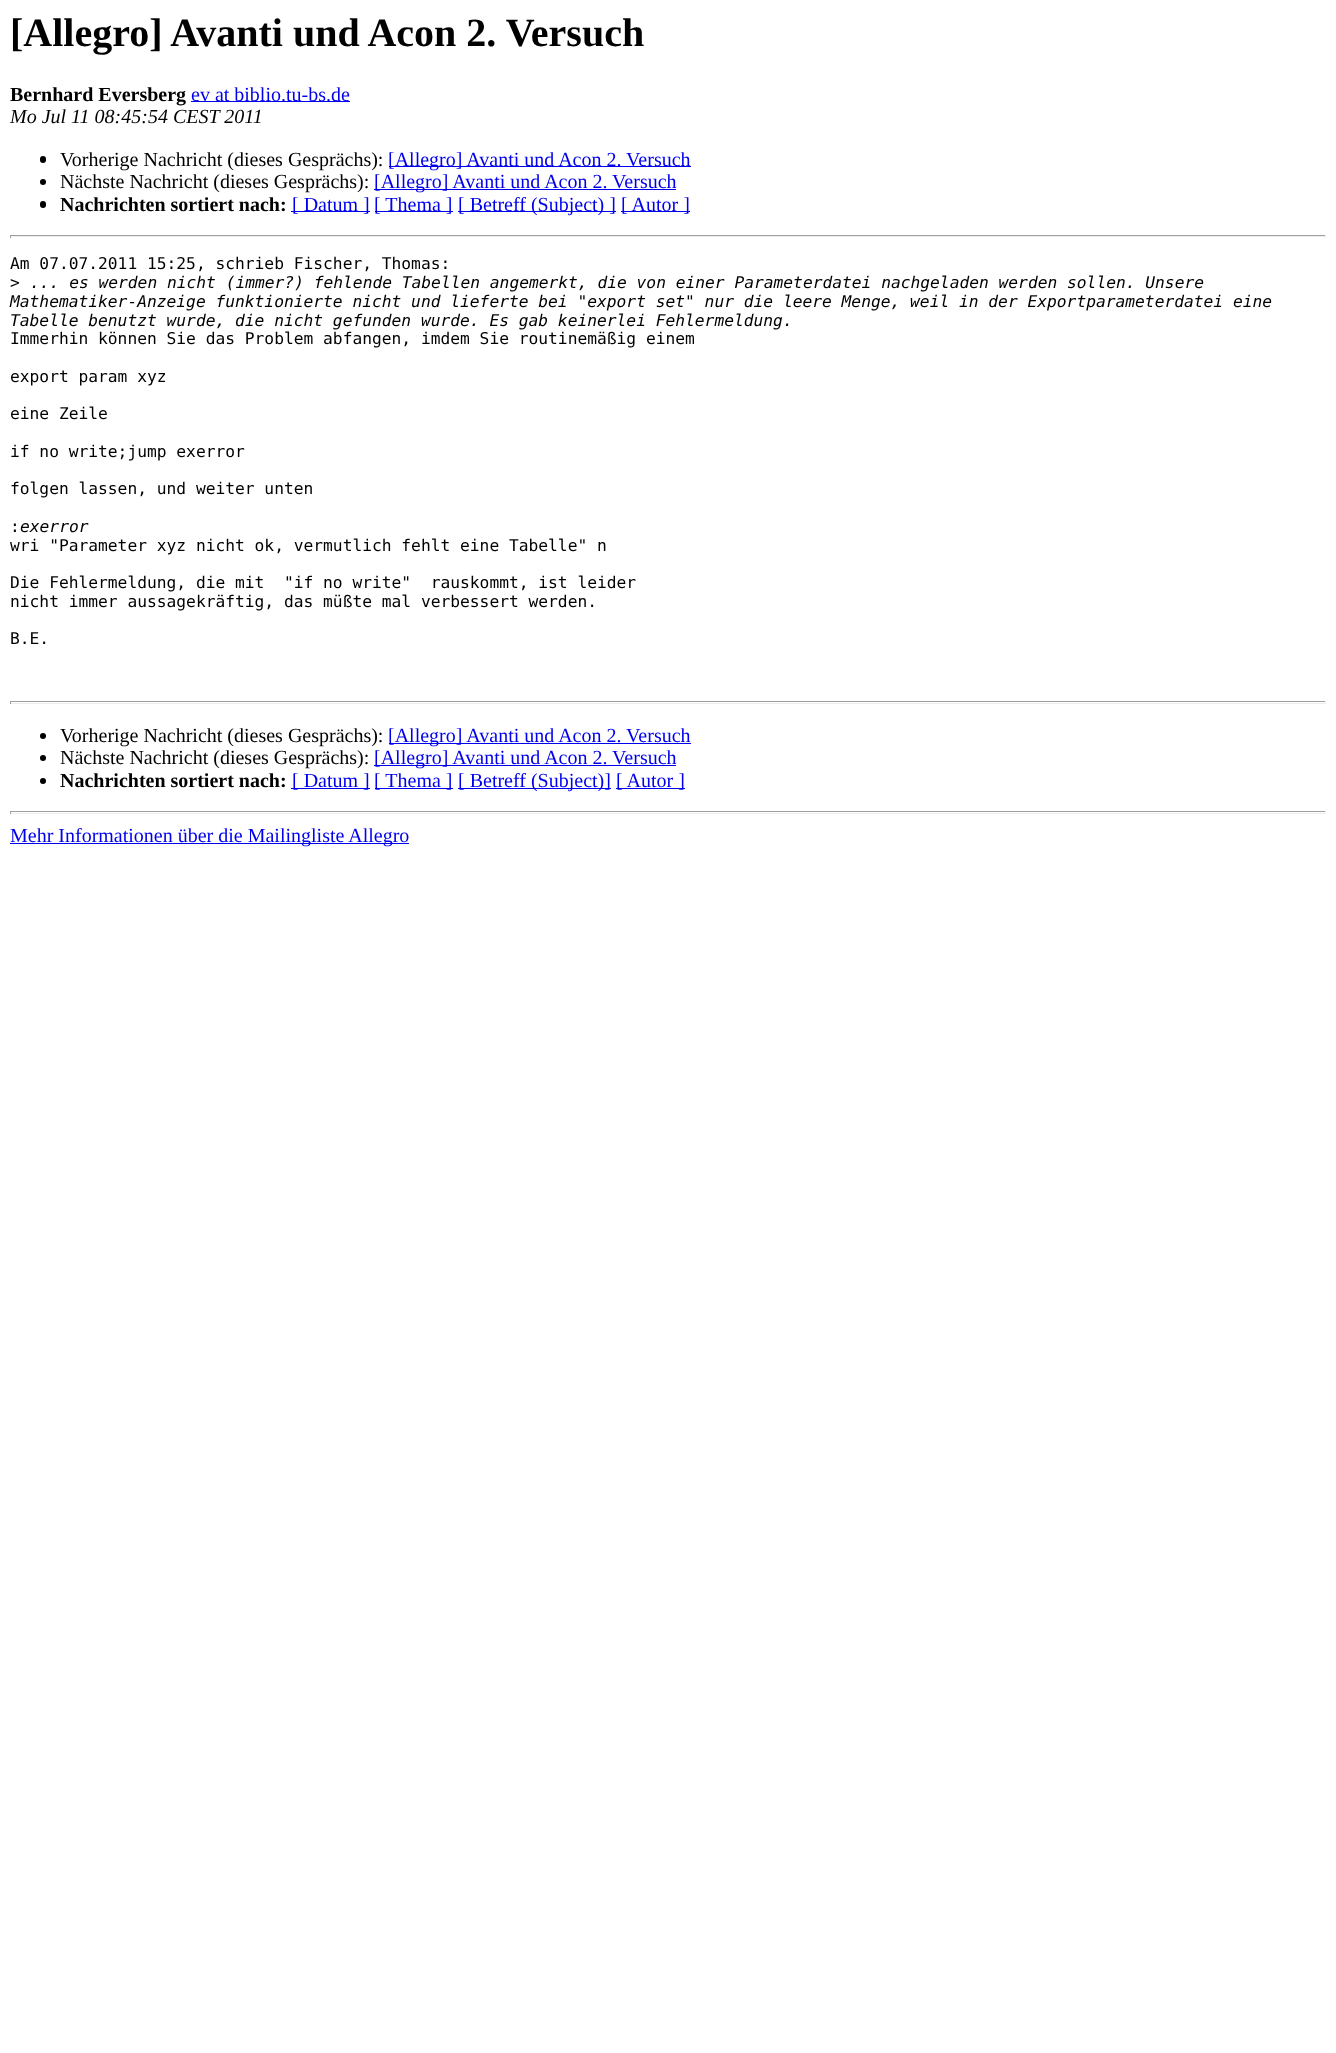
<svg xmlns="http://www.w3.org/2000/svg" width="1336" height="2053">
	<rect width="100%" height="100%" fill="#FFFFFF" />
	<text x="10" y="46" font-family="Liberation Serif" font-size="40" font-weight="700" fill="#000000">[Allegro] Avanti und Acon 2. Versuch</text>
	<text x="10" y="101" font-family="Liberation Serif" font-size="20" font-weight="700" fill="#000000">Bernhard Eversberg</text>
	<rect x="191" y="101" width="159" height="1" fill="#0000EE" />
	<text x="191" y="101" font-family="Liberation Serif" font-size="20" fill="#0000EE">ev at biblio.tu-bs.de</text>
	<text x="10" y="123" font-family="Liberation Serif" font-size="20" font-style="italic" fill="#000000">Mo Jul 11 08:45:54 CEST 2011</text>
	<rect x="40" y="156" width="6" height="7" rx="3" fill="#000000" />
	<text x="60" y="166" font-family="Liberation Serif" font-size="20" fill="#000000">Vorherige Nachricht (dieses Gesprächs):</text>
	<rect x="389" y="166" width="302" height="1" fill="#0000EE" />
	<text x="388" y="166" font-family="Liberation Serif" font-size="20" fill="#0000EE">[Allegro] Avanti und Acon 2. Versuch</text>
	<circle cx="43" cy="182" r="3" fill="#000000" />
	<text x="60" y="188" font-family="Liberation Serif" font-size="20" fill="#000000">Nächste Nachricht (dieses Gesprächs):</text>
	<rect x="374" y="189" width="302" height="1" fill="#0000EE" />
	<text x="374" y="188" font-family="Liberation Serif" font-size="20" fill="#0000EE">[Allegro] Avanti und Acon 2. Versuch</text>
	<rect x="40" y="201" width="6" height="7" rx="3" fill="#000000" />
	<text x="60" y="211" font-family="Liberation Serif" font-size="20" font-weight="700" fill="#000000">Nachrichten sortiert nach:</text>
	<rect x="291" y="211" width="79" height="1" fill="#0000EE" />
	<text x="292" y="211" font-family="Liberation Serif" font-size="20" fill="#0000EE">[ Datum ]</text>
	<rect x="375" y="211" width="78" height="1" fill="#0000EE" />
	<text x="374" y="211" font-family="Liberation Serif" font-size="20" fill="#0000EE">[ Thema ]</text>
	<rect x="458" y="211" width="158" height="1" fill="#0000EE" />
	<text x="458" y="211" font-family="Liberation Serif" font-size="20" fill="#0000EE">[ Betreff (Subject) ]</text>
	<rect x="621" y="211" width="69" height="1" fill="#0000EE" />
	<text x="621" y="211" font-family="Liberation Serif" font-size="20" fill="#0000EE">[ Autor ]</text>
	<rect x="10" y="235" width="1316" height="1" fill="#9F9F9F" />
	<rect x="1325" y="235" width="1" height="3" fill="#EEEEEE" />
	<rect x="10" y="236" width="1316" height="1" fill="#EEEEEE" />
	<rect x="10" y="235" width="1" height="3" fill="#9F9F9F" />
	<g font-family="DejaVu Sans Mono" font-size="16.25" fill="#000000">
		<text x="10" y="269">Am 07.07.2011 15:25, schrieb Fischer, Thomas:</text>
		<text x="10" y="288">&gt;</text>
	</g>
	<g font-family="DejaVu Sans Mono" font-size="16.25" font-style="italic" fill="#000000">
		<text x="30" y="288">... es werden nicht (immer?) fehlende Tabellen angemerkt, die von einer Parameterdatei nachgeladen werden sollen. Unsere</text>
		<text x="10" y="307">Mathematiker-Anzeige funktionierte nicht und lieferte bei "export set" nur die leere Menge, weil in der Exportparameterdatei eine</text>
		<text x="10" y="326">Tabelle benutzt wurde, die nicht gefunden wurde. Es gab keinerlei Fehlermeldung.</text>
	</g>
	<g font-family="DejaVu Sans Mono" font-size="16.25" fill="#000000">
		<text x="10" y="344">Immerhin können Sie das Problem abfangen, imdem Sie routinemäßig einem</text>
		<text x="10" y="382">export param xyz</text>
		<text x="10" y="419">eine Zeile</text>
		<text x="10" y="457">if no write;jump exerror</text>
		<text x="10" y="494">folgen lassen, und weiter unten</text>
		<text x="10" y="532">:</text>
	</g>
	<text x="20" y="532" font-family="DejaVu Sans Mono" font-size="16.25" font-style="italic" fill="#000000">exerror</text>
	<g font-family="DejaVu Sans Mono" font-size="16.25" fill="#000000">
		<text x="10" y="551">wri "Parameter xyz nicht ok, vermutlich fehlt eine Tabelle" n</text>
		<text x="10" y="588" xml:space="preserve">Die Fehlermeldung, die mit  "if no write"  rauskommt, ist leider</text>
		<text x="10" y="607">nicht immer aussagekräftig, das müßte mal verbessert werden.</text>
		<text x="10" y="644">B.E.</text>
	</g>
	<rect x="10" y="701" width="1316" height="1" fill="#9F9F9F" />
	<rect x="1325" y="701" width="1" height="3" fill="#EEEEEE" />
	<rect x="10" y="703" width="1316" height="1" fill="#EEEEEE" />
	<rect x="10" y="701" width="1" height="3" fill="#9F9F9F" />
	<circle cx="43" cy="736" r="3" fill="#000000" />
	<text x="60" y="742" font-family="Liberation Serif" font-size="20" fill="#000000">Vorherige Nachricht (dieses Gesprächs):</text>
	<rect x="389" y="743" width="302" height="1" fill="#0000EE" />
	<text x="388" y="742" font-family="Liberation Serif" font-size="20" fill="#0000EE">[Allegro] Avanti und Acon 2. Versuch</text>
	<circle cx="43" cy="758" r="3" fill="#000000" />
	<text x="60" y="764" font-family="Liberation Serif" font-size="20" fill="#000000">Nächste Nachricht (dieses Gesprächs):</text>
	<rect x="374" y="765" width="302" height="1" fill="#0000EE" />
	<text x="374" y="764" font-family="Liberation Serif" font-size="20" fill="#0000EE">[Allegro] Avanti und Acon 2. Versuch</text>
	<circle cx="43" cy="781" r="3" fill="#000000" />
	<text x="60" y="787" font-family="Liberation Serif" font-size="20" font-weight="700" fill="#000000">Nachrichten sortiert nach:</text>
	<rect x="291" y="788" width="79" height="1" fill="#0000EE" />
	<text x="292" y="787" font-family="Liberation Serif" font-size="20" fill="#0000EE">[ Datum ]</text>
	<rect x="375" y="788" width="78" height="1" fill="#0000EE" />
	<text x="374" y="787" font-family="Liberation Serif" font-size="20" fill="#0000EE">[ Thema ]</text>
	<rect x="458" y="788" width="153" height="1" fill="#0000EE" />
	<text x="458" y="787" font-family="Liberation Serif" font-size="20" fill="#0000EE">[ Betreff (Subject)]</text>
	<rect x="616" y="788" width="69" height="1" fill="#0000EE" />
	<text x="616" y="787" font-family="Liberation Serif" font-size="20" fill="#0000EE">[ Autor ]</text>
	<rect x="10" y="811" width="1316" height="1" fill="#9F9F9F" />
	<rect x="1325" y="811" width="1" height="3" fill="#EEEEEE" />
	<rect x="10" y="813" width="1316" height="1" fill="#EEEEEE" />
	<rect x="10" y="811" width="1" height="3" fill="#9F9F9F" />
	<rect x="10" y="843" width="399" height="1" fill="#0000EE" />
	<text x="10" y="842" font-family="Liberation Serif" font-size="20" fill="#0000EE">Mehr Informationen über die Mailingliste Allegro</text>
</svg>
